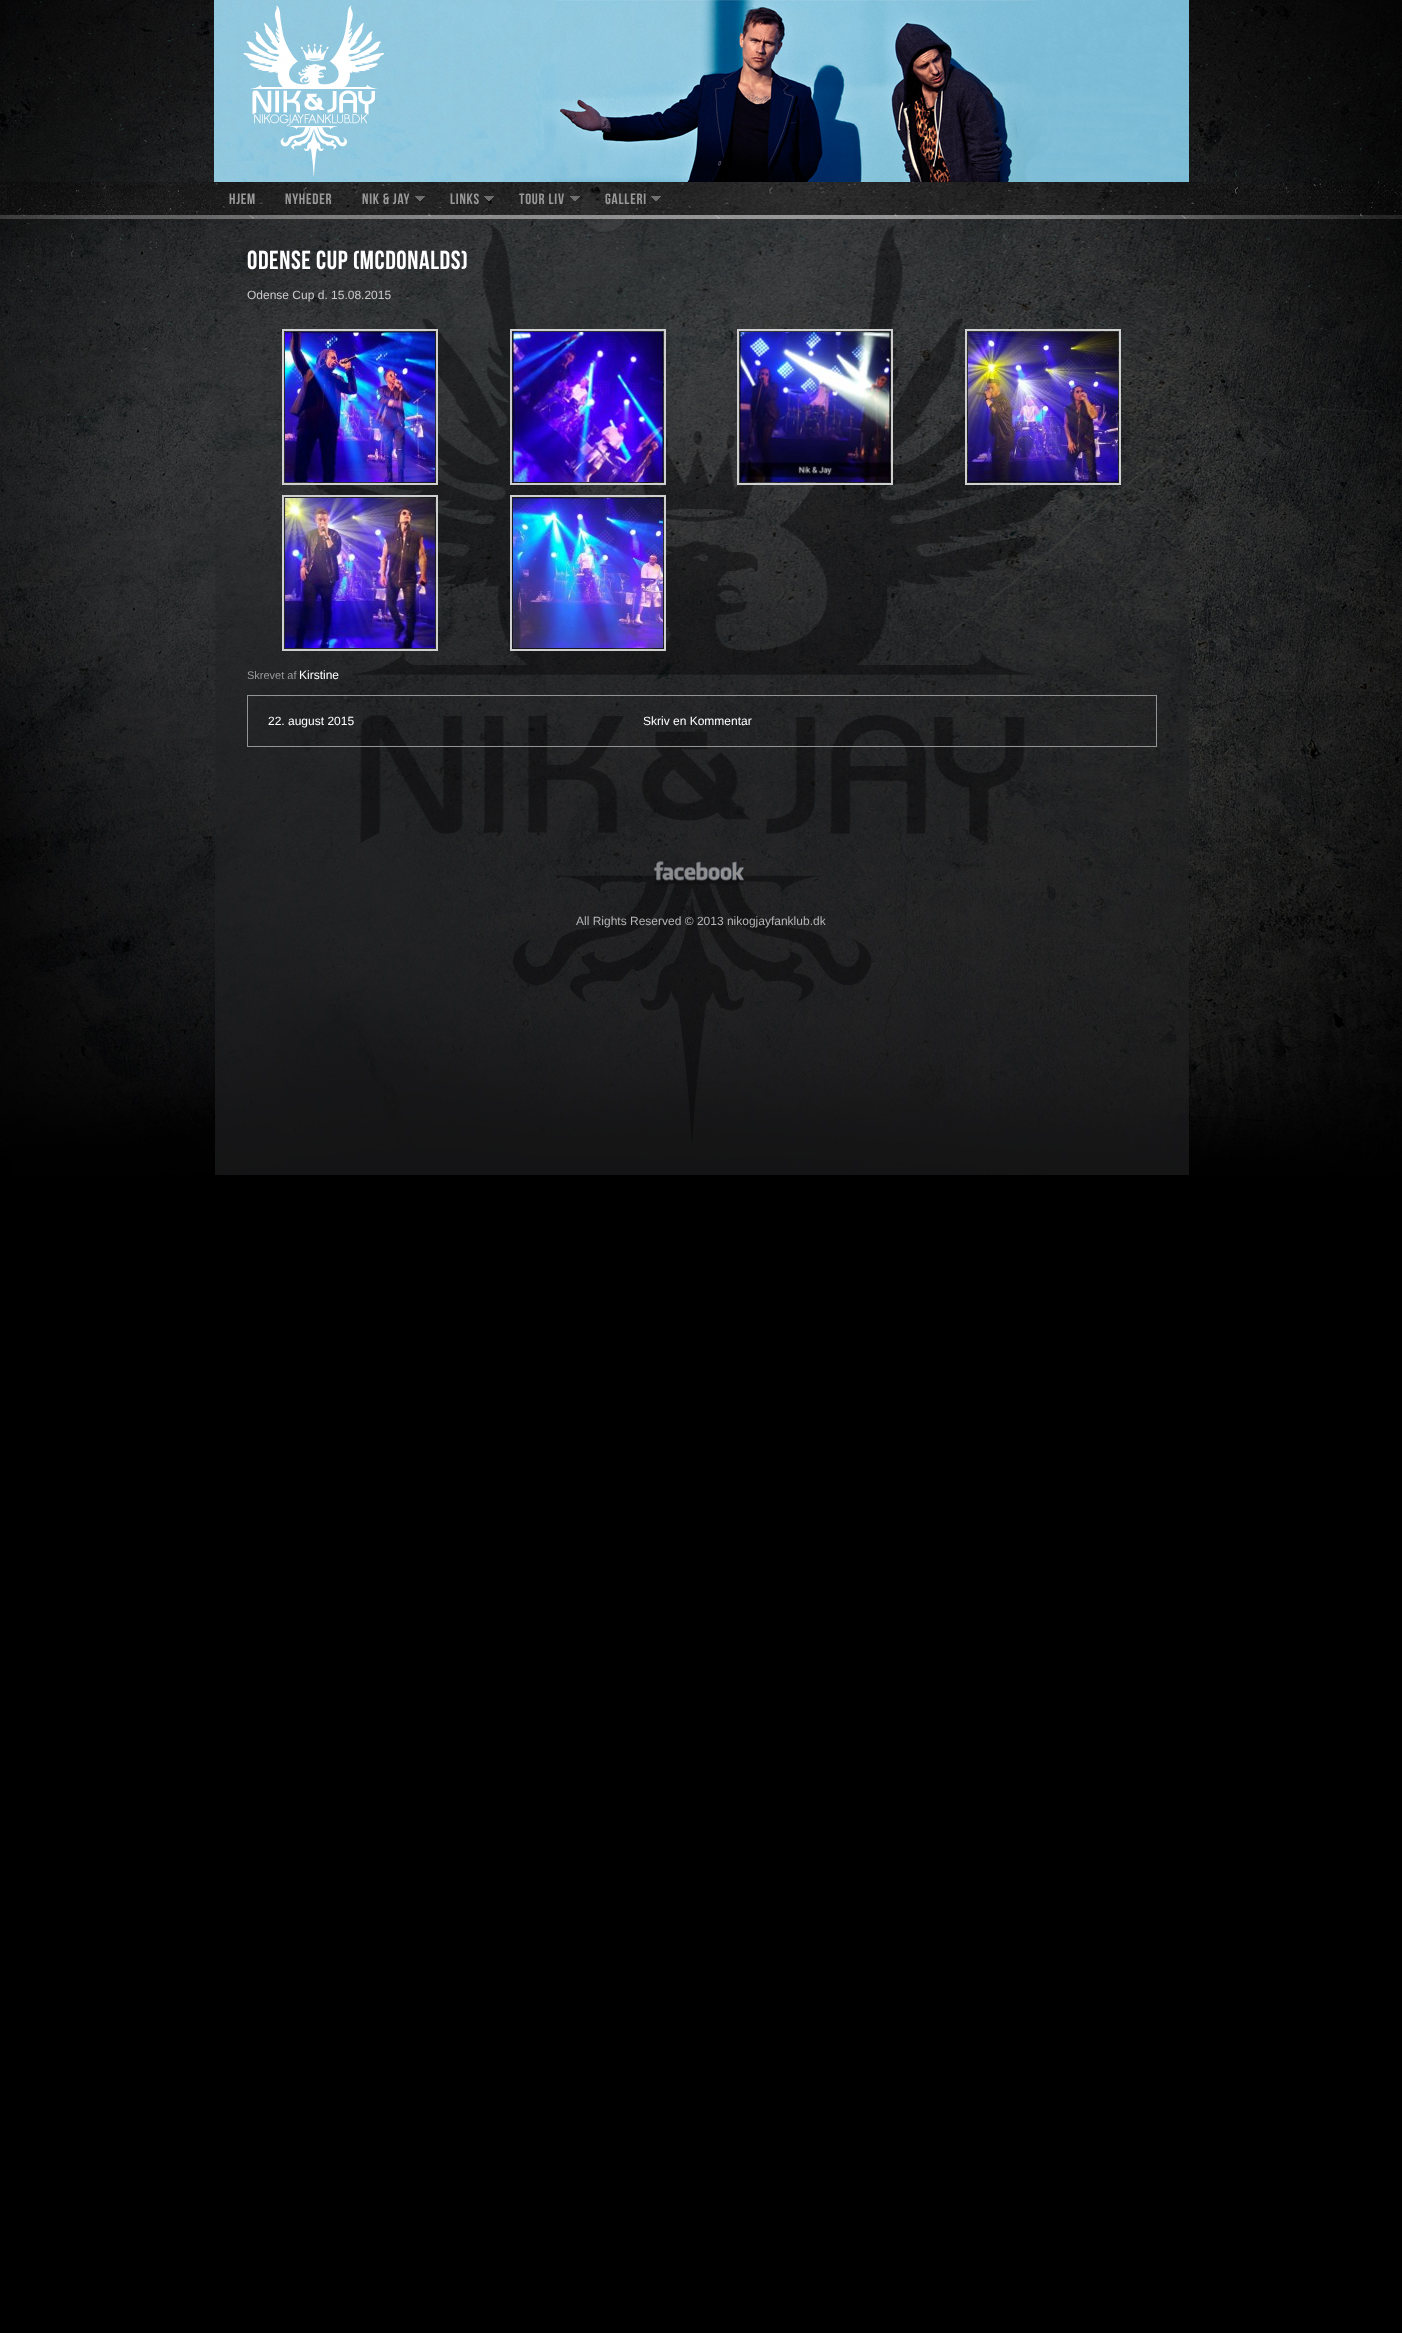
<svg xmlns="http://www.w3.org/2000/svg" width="1402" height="2333">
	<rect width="100%" height="100%" fill="#000000" />
	<image x="0" y="0" width="1402" height="1175" href="assets/img1.png" />
	<image x="214" y="182" width="975" height="645" href="assets/img2.png" />
	<image x="214" y="0" width="975" height="182" href="assets/img3.png" />
	<g font-family="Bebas" font-size="15" letter-spacing="0.75" fill="#999999">
		<text x="229" y="204">Hjem</text>
		<text x="285" y="204">Nyheder</text>
	</g>
	<image x="415" y="196" width="10" height="5" href="assets/img4.png" />
	<text x="362" y="204" font-family="Bebas" font-size="15" letter-spacing="0.75" fill="#999999">Nik &amp; Jay</text>
	<image x="484" y="196" width="10" height="5" href="assets/img5.png" />
	<text x="450" y="204" font-family="Bebas" font-size="15" letter-spacing="0.75" fill="#999999">Links</text>
	<image x="570" y="196" width="10" height="5" href="assets/img6.png" />
	<text x="519" y="204" font-family="Bebas" font-size="15" letter-spacing="0.75" fill="#999999">Tour liv</text>
	<image x="651" y="196" width="10" height="5" href="assets/img7.png" />
	<text x="605" y="204" font-family="Bebas" font-size="15" letter-spacing="0.75" fill="#999999">Galleri</text>
	<text x="247" y="269" font-family="Bebas" font-size="26" letter-spacing="0.6" fill="#FFFFFF">Odense cup (McDonalds)</text>
	<text x="247" y="299" font-family="Liberation Sans" font-size="12" fill="#CBCBCB">Odense Cup d. 15.08.2015</text>
	<rect x="283" y="330" width="154" height="154" fill="none" stroke="#CFCFCF" stroke-width="2" />
	<image x="285" y="332" width="150" height="150" href="assets/img8.png" />
	<rect x="511" y="330" width="154" height="154" fill="none" stroke="#CFCFCF" stroke-width="2" />
	<image x="513" y="332" width="150" height="150" href="assets/img9.png" />
	<rect x="738" y="330" width="154" height="154" fill="none" stroke="#CFCFCF" stroke-width="2" />
	<image x="740" y="332" width="150" height="150" href="assets/img10.png" />
	<rect x="966" y="330" width="154" height="154" fill="none" stroke="#CFCFCF" stroke-width="2" />
	<image x="968" y="332" width="150" height="150" href="assets/img11.png" />
	<rect x="283" y="496" width="154" height="154" fill="none" stroke="#CFCFCF" stroke-width="2" />
	<image x="285" y="498" width="150" height="150" href="assets/img12.png" />
	<rect x="511" y="496" width="154" height="154" fill="none" stroke="#CFCFCF" stroke-width="2" />
	<image x="513" y="498" width="150" height="150" href="assets/img13.png" />
	<text x="247" y="679" font-family="Liberation Sans" font-size="11" fill="#999999">Skrevet af</text>
	<text x="299" y="679" font-family="Liberation Sans" font-size="12" fill="#FFFFFF">Kirstine</text>
	<rect x="247.5" y="695.5" width="909" height="51" fill="none" stroke="#949494" />
	<g font-family="Liberation Sans" font-size="12" fill="#FFFFFF">
		<text x="268" y="725">22. august 2015</text>
		<text x="643" y="725">Skriv en Kommentar</text>
	</g>
	<image x="654" y="861" width="90" height="24" href="assets/img14.png" />
	<text x="576" y="925" font-family="Liberation Sans" font-size="12" fill="#B5B5B5">All Rights Reserved © 2013 nikogjayfanklub.dk</text>
</svg>
